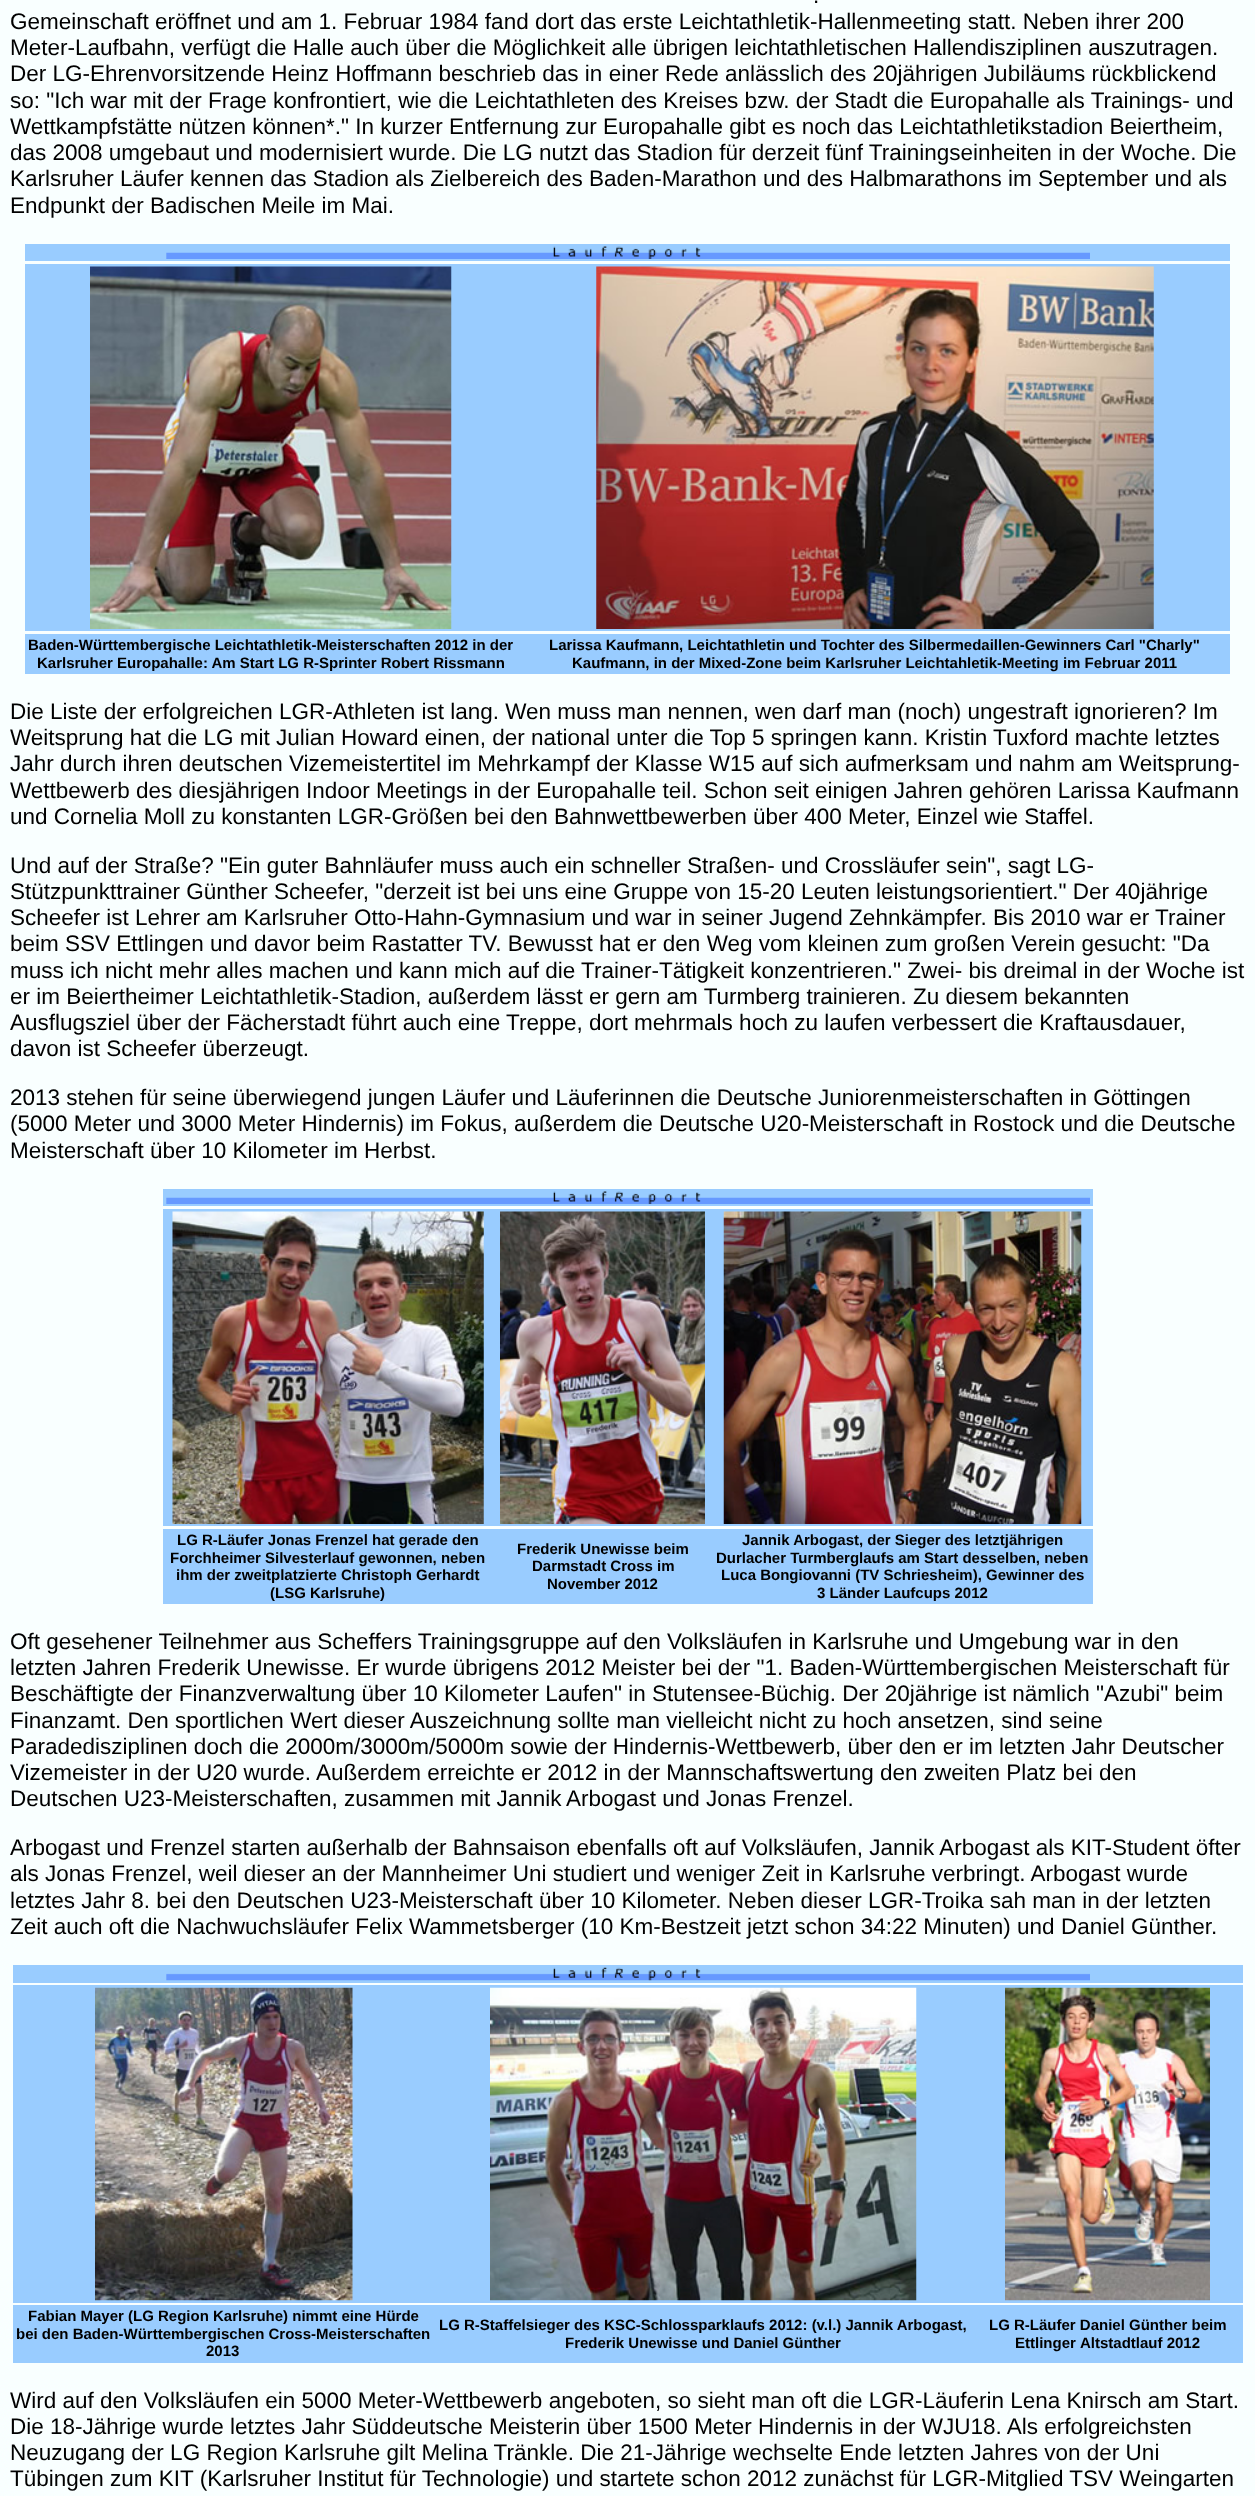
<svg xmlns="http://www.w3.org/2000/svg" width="1255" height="2496">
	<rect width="100%" height="100%" fill="#F9FFFF" />
	<g font-family="Liberation Sans" font-size="22.5" fill="#000000">
		<text x="813" y="3">.</text>
		<text x="10" y="29">Gemeinschaft eröffnet und am 1. Februar 1984 fand dort das erste Leichtathletik-Hallenmeeting statt. Neben ihrer 200</text>
		<text x="10" y="55">Meter-Laufbahn, verfügt die Halle auch über die Möglichkeit alle übrigen leichtathletischen Hallendisziplinen auszutragen.</text>
		<text x="10" y="81">Der LG-Ehrenvorsitzende Heinz Hoffmann beschrieb das in einer Rede anlässlich des 20jährigen Jubiläums rückblickend</text>
		<text x="10" y="108">so: "Ich war mit der Frage konfrontiert, wie die Leichtathleten des Kreises bzw. der Stadt die Europahalle als Trainings- und</text>
		<text x="10" y="134">Wettkampfstätte nützen können*." In kurzer Entfernung zur Europahalle gibt es noch das Leichtathletikstadion Beiertheim,</text>
		<text x="10" y="160">das 2008 umgebaut und modernisiert wurde. Die LG nutzt das Stadion für derzeit fünf Trainingseinheiten in der Woche. Die</text>
		<text x="10" y="186">Karlsruher Läufer kennen das Stadion als Zielbereich des Baden-Marathon und des Halbmarathons im September und als</text>
		<text x="10" y="213">Endpunkt der Badischen Meile im Mai.</text>
	</g>
	<rect x="25" y="244" width="1205" height="17" fill="#99CCFF" />
	<image x="166" y="246" width="924" height="13" href="assets/img1.png" />
	<rect x="25" y="264" width="1205" height="367" fill="#99CCFF" />
	<image x="90" y="266" width="362" height="363" href="assets/img2.png" />
	<image x="596" y="266" width="558" height="363" href="assets/img3.png" />
	<rect x="25" y="634" width="1205" height="40" fill="#99CCFF" />
	<g font-family="Liberation Sans" font-size="15" font-weight="700" fill="#000000">
		<text x="28" y="650">Baden-Württembergische Leichtathletik-Meisterschaften 2012 in der</text>
		<text x="37" y="668">Karlsruher Europahalle: Am Start LG R-Sprinter Robert Rissmann</text>
		<text x="549" y="650">Larissa Kaufmann, Leichtathletin und Tochter des Silbermedaillen-Gewinners Carl "Charly"</text>
		<text x="572" y="668">Kaufmann, in der Mixed-Zone beim Karlsruher Leichtahletik-Meeting im Februar 2011</text>
	</g>
	<g font-family="Liberation Sans" font-size="22.5" fill="#000000">
		<text x="10" y="719">Die Liste der erfolgreichen LGR-Athleten ist lang. Wen muss man nennen, wen darf man (noch) ungestraft ignorieren? Im</text>
		<text x="10" y="745">Weitsprung hat die LG mit Julian Howard einen, der national unter die Top 5 springen kann. Kristin Tuxford machte letztes</text>
		<text x="10" y="771">Jahr durch ihren deutschen Vizemeistertitel im Mehrkampf der Klasse W15 auf sich aufmerksam und nahm am Weitsprung-</text>
		<text x="10" y="798">Wettbewerb des diesjährigen Indoor Meetings in der Europahalle teil. Schon seit einigen Jahren gehören Larissa Kaufmann</text>
		<text x="10" y="824">und Cornelia Moll zu konstanten LGR-Größen bei den Bahnwettbewerben über 400 Meter, Einzel wie Staffel.</text>
		<text x="10" y="873">Und auf der Straße? "Ein guter Bahnläufer muss auch ein schneller Straßen- und Crossläufer sein", sagt LG-</text>
		<text x="10" y="899">Stützpunkttrainer Günther Scheefer, "derzeit ist bei uns eine Gruppe von 15-20 Leuten leistungsorientiert." Der 40jährige</text>
		<text x="10" y="925">Scheefer ist Lehrer am Karlsruher Otto-Hahn-Gymnasium und war in seiner Jugend Zehnkämpfer. Bis 2010 war er Trainer</text>
		<text x="10" y="951">beim SSV Ettlingen und davor beim Rastatter TV. Bewusst hat er den Weg vom kleinen zum großen Verein gesucht: "Da</text>
		<text x="10" y="978">muss ich nicht mehr alles machen und kann mich auf die Trainer-Tätigkeit konzentrieren." Zwei- bis dreimal in der Woche ist</text>
		<text x="10" y="1004">er im Beiertheimer Leichtathletik-Stadion, außerdem lässt er gern am Turmberg trainieren. Zu diesem bekannten</text>
		<text x="10" y="1030">Ausflugsziel über der Fächerstadt führt auch eine Treppe, dort mehrmals hoch zu laufen verbessert die Kraftausdauer,</text>
		<text x="10" y="1056">davon ist Scheefer überzeugt.</text>
		<text x="10" y="1105">2013 stehen für seine überwiegend jungen Läufer und Läuferinnen die Deutsche Juniorenmeisterschaften in Göttingen</text>
		<text x="10" y="1131">(5000 Meter und 3000 Meter Hindernis) im Fokus, außerdem die Deutsche U20-Meisterschaft in Rostock und die Deutsche</text>
		<text x="10" y="1158">Meisterschaft über 10 Kilometer im Herbst.</text>
	</g>
	<rect x="163" y="1189" width="930" height="17" fill="#99CCFF" />
	<image x="166" y="1191" width="924" height="13" href="assets/img1.png" />
	<rect x="163" y="1209" width="930" height="317" fill="#99CCFF" />
	<image x="172" y="1211" width="312" height="313" href="assets/img4.png" />
	<image x="500" y="1211" width="205" height="313" href="assets/img5.png" />
	<image x="723" y="1211" width="359" height="313" href="assets/img6.png" />
	<rect x="163" y="1529" width="930" height="75" fill="#99CCFF" />
	<g font-family="Liberation Sans" font-size="15" font-weight="700" fill="#000000">
		<text x="177" y="1545">LG R-Läufer Jonas Frenzel hat gerade den</text>
		<text x="170" y="1563">Forchheimer Silvesterlauf gewonnen, neben</text>
		<text x="176" y="1580">ihm der zweitplatzierte Christoph Gerhardt</text>
		<text x="270" y="1598">(LSG Karlsruhe)</text>
		<text x="517" y="1554">Frederik Unewisse beim</text>
		<text x="532" y="1571">Darmstadt Cross im</text>
		<text x="547" y="1589">November 2012</text>
		<text x="742" y="1545">Jannik Arbogast, der Sieger des letztjährigen</text>
		<text x="716" y="1563">Durlacher Turmberglaufs am Start desselben, neben</text>
		<text x="721" y="1580">Luca Bongiovanni (TV Schriesheim), Gewinner des</text>
		<text x="817" y="1598">3 Länder Laufcups 2012</text>
	</g>
	<g font-family="Liberation Sans" font-size="22.5" fill="#000000">
		<text x="10" y="1649">Oft gesehener Teilnehmer aus Scheffers Trainingsgruppe auf den Volksläufen in Karlsruhe und Umgebung war in den</text>
		<text x="10" y="1675">letzten Jahren Frederik Unewisse. Er wurde übrigens 2012 Meister bei der "1. Baden-Württembergischen Meisterschaft für</text>
		<text x="10" y="1701">Beschäftigte der Finanzverwaltung über 10 Kilometer Laufen" in Stutensee-Büchig. Der 20jährige ist nämlich "Azubi" beim</text>
		<text x="10" y="1728">Finanzamt. Den sportlichen Wert dieser Auszeichnung sollte man vielleicht nicht zu hoch ansetzen, sind seine</text>
		<text x="10" y="1754">Paradedisziplinen doch die 2000m/3000m/5000m sowie der Hindernis-Wettbewerb, über den er im letzten Jahr Deutscher</text>
		<text x="10" y="1780">Vizemeister in der U20 wurde. Außerdem erreichte er 2012 in der Mannschaftswertung den zweiten Platz bei den</text>
		<text x="10" y="1806">Deutschen U23-Meisterschaften, zusammen mit Jannik</text>
		<text x="566" y="1806">Arbogast und Jonas Frenzel.</text>
		<text x="10" y="1855">Arbogast und Frenzel starten außerhalb der Bahnsaison ebenfalls oft auf Volksläufen, Jannik Arbogast als KIT-Student öfter</text>
		<text x="10" y="1881">als Jonas Frenzel, weil dieser an der Mannheimer Uni studiert und weniger Zeit in Karlsruhe verbringt. Arbogast wurde</text>
		<text x="10" y="1908">letztes Jahr 8. bei den Deutschen U23-Meisterschaft über 10 Kilometer. Neben dieser LGR-Troika sah man in der letzten</text>
		<text x="10" y="1934">Zeit auch oft die Nachwuchsläufer Felix Wammetsberger (10 Km-Bestzeit jetzt schon 34:22 Minuten) und Daniel Günther.</text>
	</g>
	<rect x="13" y="1965" width="1230" height="18" fill="#99CCFF" />
	<image x="166" y="1967" width="924" height="14" href="assets/img7.png" />
	<rect x="13" y="1985" width="1230" height="318" fill="#99CCFF" />
	<image x="95" y="1987" width="258" height="314" href="assets/img8.png" />
	<image x="490" y="1987" width="427" height="314" href="assets/img9.png" />
	<image x="1005" y="1987" width="205" height="314" href="assets/img10.png" />
	<rect x="13" y="2305" width="1230" height="58" fill="#99CCFF" />
	<g font-family="Liberation Sans" font-size="15" font-weight="700" fill="#000000">
		<text x="28" y="2321">Fabian Mayer (LG Region Karlsruhe) nimmt eine Hürde</text>
		<text x="16" y="2339">bei den Baden-Württembergischen Cross-Meisterschaften</text>
		<text x="206" y="2356">2013</text>
		<text x="439" y="2330">LG R-Staffelsieger des KSC-Schlossparklaufs 2012: (v.l.) Jannik Arbogast,</text>
		<text x="565" y="2348">Frederik Unewisse und Daniel Günther</text>
		<text x="989" y="2330">LG R-Läufer Daniel Günther beim</text>
		<text x="1015" y="2348">Ettlinger</text>
		<text x="1080" y="2348">Altstadtlauf 2012</text>
	</g>
	<g font-family="Liberation Sans" font-size="22.5" fill="#000000">
		<text x="10" y="2408">Wird auf den Volksläufen ein 5000 Meter-Wettbewerb angeboten, so sieht man oft die LGR-Läuferin Lena Knirsch am Start.</text>
		<text x="10" y="2434">Die 18-Jährige wurde letztes Jahr Süddeutsche Meisterin über 1500 Meter Hindernis in der WJU18. Als erfolgreichsten</text>
		<text x="10" y="2460">Neuzugang der LG Region Karlsruhe gilt Melina Tränkle. Die 21-Jährige wechselte Ende letzten Jahres von der Uni</text>
		<text x="10" y="2486">Tübingen zum KIT (Karlsruher Institut für Technologie) und startete schon 2012 zunächst für LGR-Mitglied TSV Weingarten</text>
	</g>
</svg>
